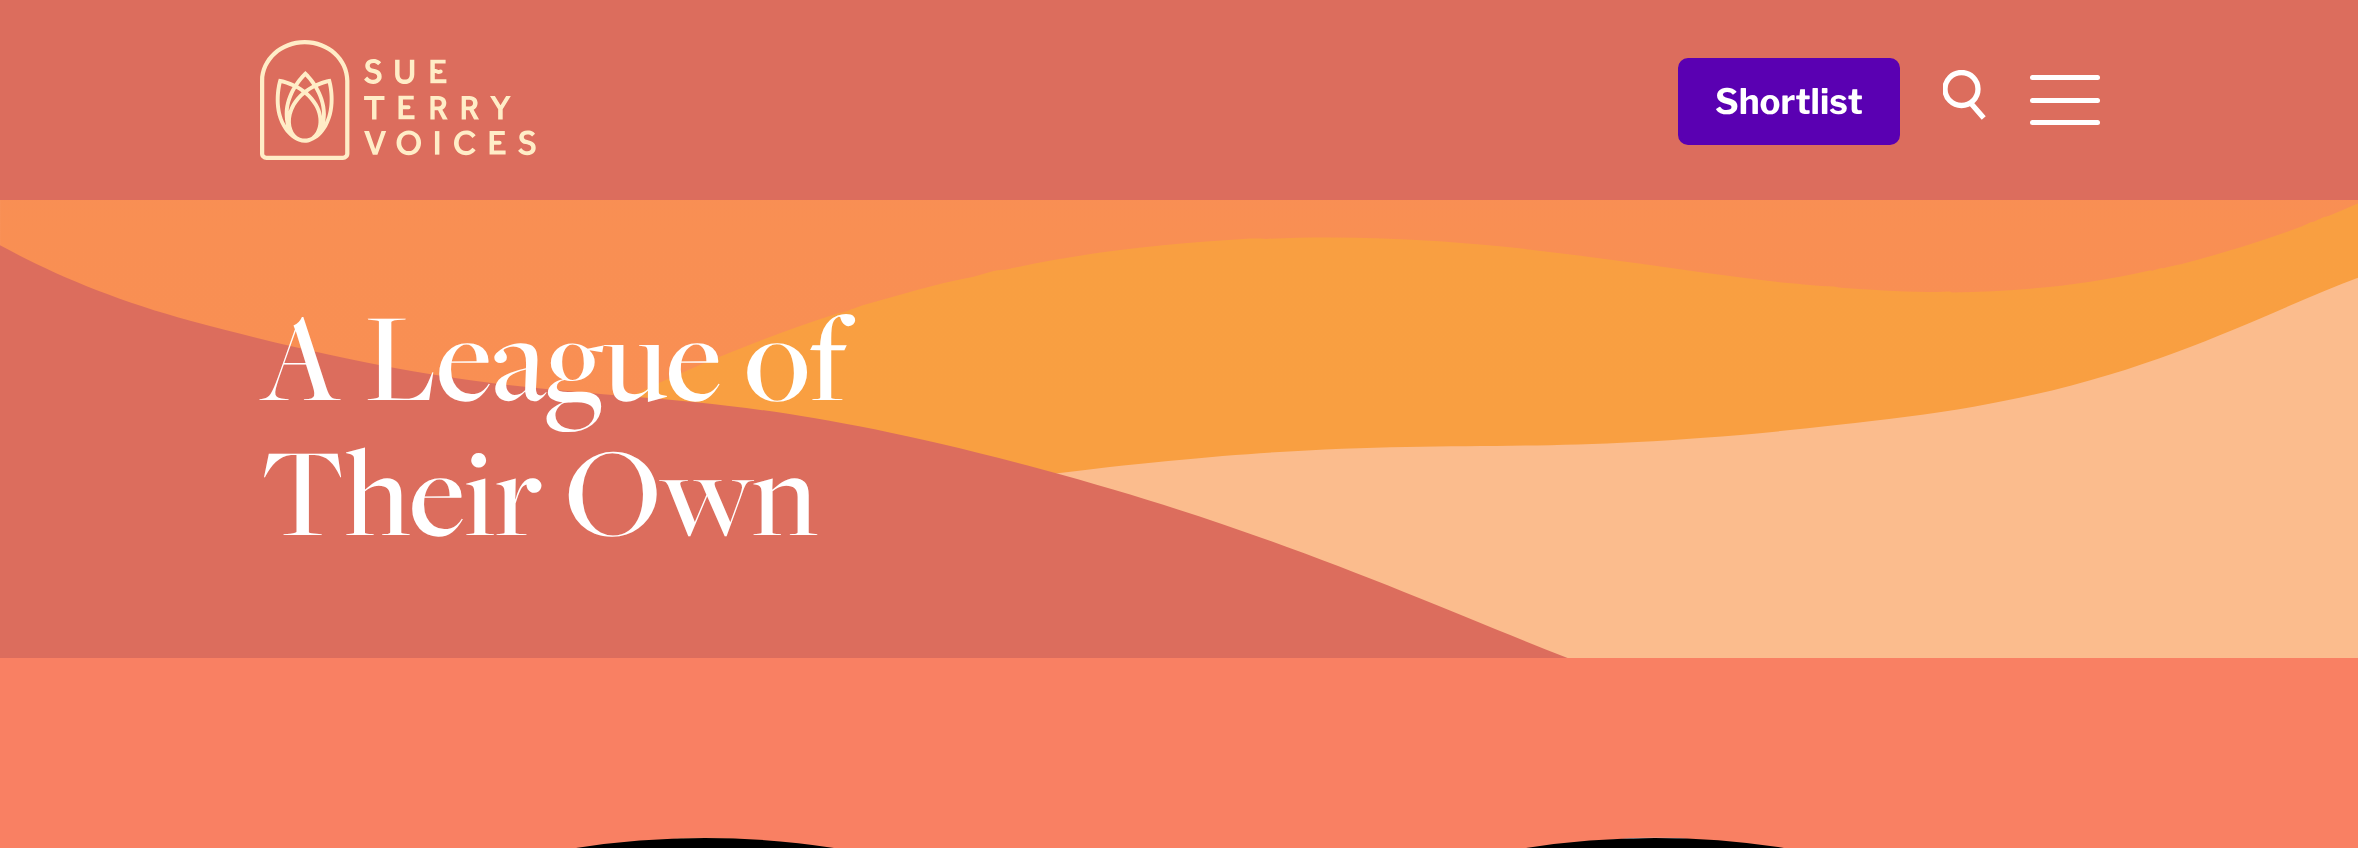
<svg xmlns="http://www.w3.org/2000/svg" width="2358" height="848">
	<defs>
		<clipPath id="clip1"><rect x="1943" y="70" width="45" height="50" /></clipPath>
	</defs>
	<rect width="100%" height="100%" fill="#F98063" />
	<rect x="0" y="0" width="2358" height="200" fill="#DC6D5D" />
	<image x="260" y="40" width="276" height="120" href="assets/img1.png" />
	<rect x="1679.5" y="59.5" width="219" height="84" rx="8.5" fill="#5A00B2" stroke="#5A00B2" stroke-width="3" />
	<text x="1715" y="114" font-family="Libre Franklin" font-size="35" font-weight="700" fill="#FFFFFF">Shortlist</text>
	<g clip-path="url(#clip1)">
		<circle cx="1961.5" cy="89" r="16.5" fill="none" stroke="#FFFFFF" stroke-width="5.3" />
	</g>
	<path d="M1971.5 104L1982 116" fill="none" stroke="#FFFFFF" stroke-width="5.3" stroke-linecap="square" />
	<rect x="2030" y="75" width="70" height="5" rx="2.5" fill="#FFFFFF" />
	<rect x="2030" y="98" width="70" height="5" rx="2.5" fill="#FFFFFF" />
	<rect x="2030" y="120" width="70" height="5" rx="2.5" fill="#FFFFFF" />
	<image x="0" y="200" width="2358" height="458" href="assets/img2.png" />
	<g font-family="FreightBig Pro" font-size="130" font-weight="500" fill="#FFFFFF">
		<text x="260" y="400">A League of</text>
		<text x="260" y="535">Their Own</text>
	</g>
	<path d="M705 845.5C946.5 845.5 1142.5 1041.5 1142.5 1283V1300.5H267.5V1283C267.5 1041.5 463.5 845.5 705 845.5Z" fill="none" stroke="#000000" stroke-width="15" />
	<image x="609" y="837" width="191" height="11" href="assets/img3.png" />
	<rect x="267.5" y="845.5" width="875" height="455" rx="437.5" fill="none" stroke="#000000" stroke-width="15" />
	<path d="M1655 845.5C1896.5 845.5 2092.5 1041.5 2092.5 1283V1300.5H1217.5V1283C1217.5 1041.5 1413.5 845.5 1655 845.5Z" fill="none" stroke="#000000" stroke-width="15" />
	<image x="1559" y="837" width="192" height="11" href="assets/img4.png" />
	<rect x="1217.5" y="845.5" width="875" height="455" rx="437.5" fill="none" stroke="#000000" stroke-width="15" />
</svg>
